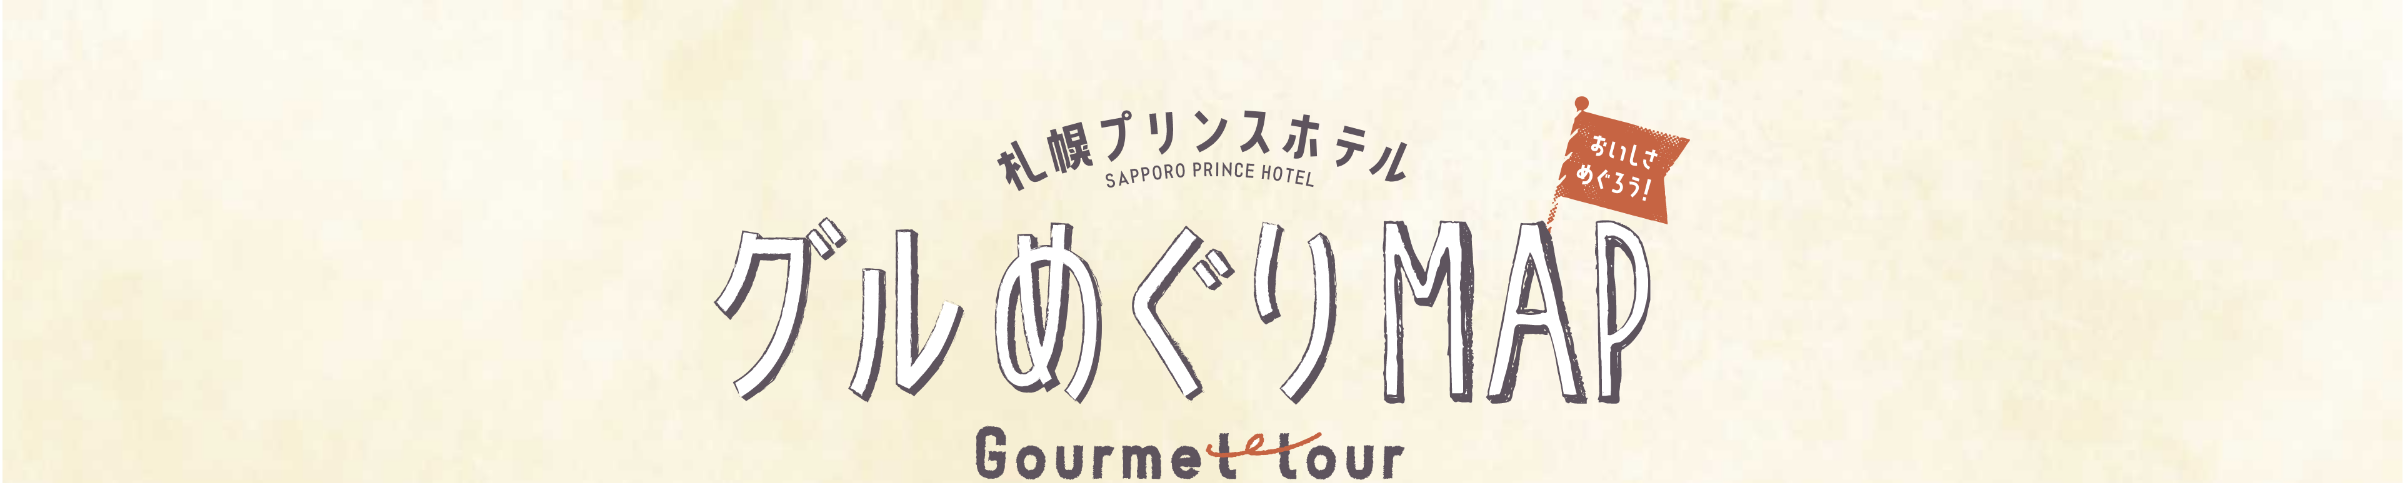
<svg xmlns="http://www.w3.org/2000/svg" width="2403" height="483">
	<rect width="100%" height="100%" fill="#FFFFFF" />
	<image x="2" y="0" width="2401" height="483" href="assets/img1.png" />
	<image x="713" y="96" width="977" height="384" href="assets/img2.png" />
</svg>
